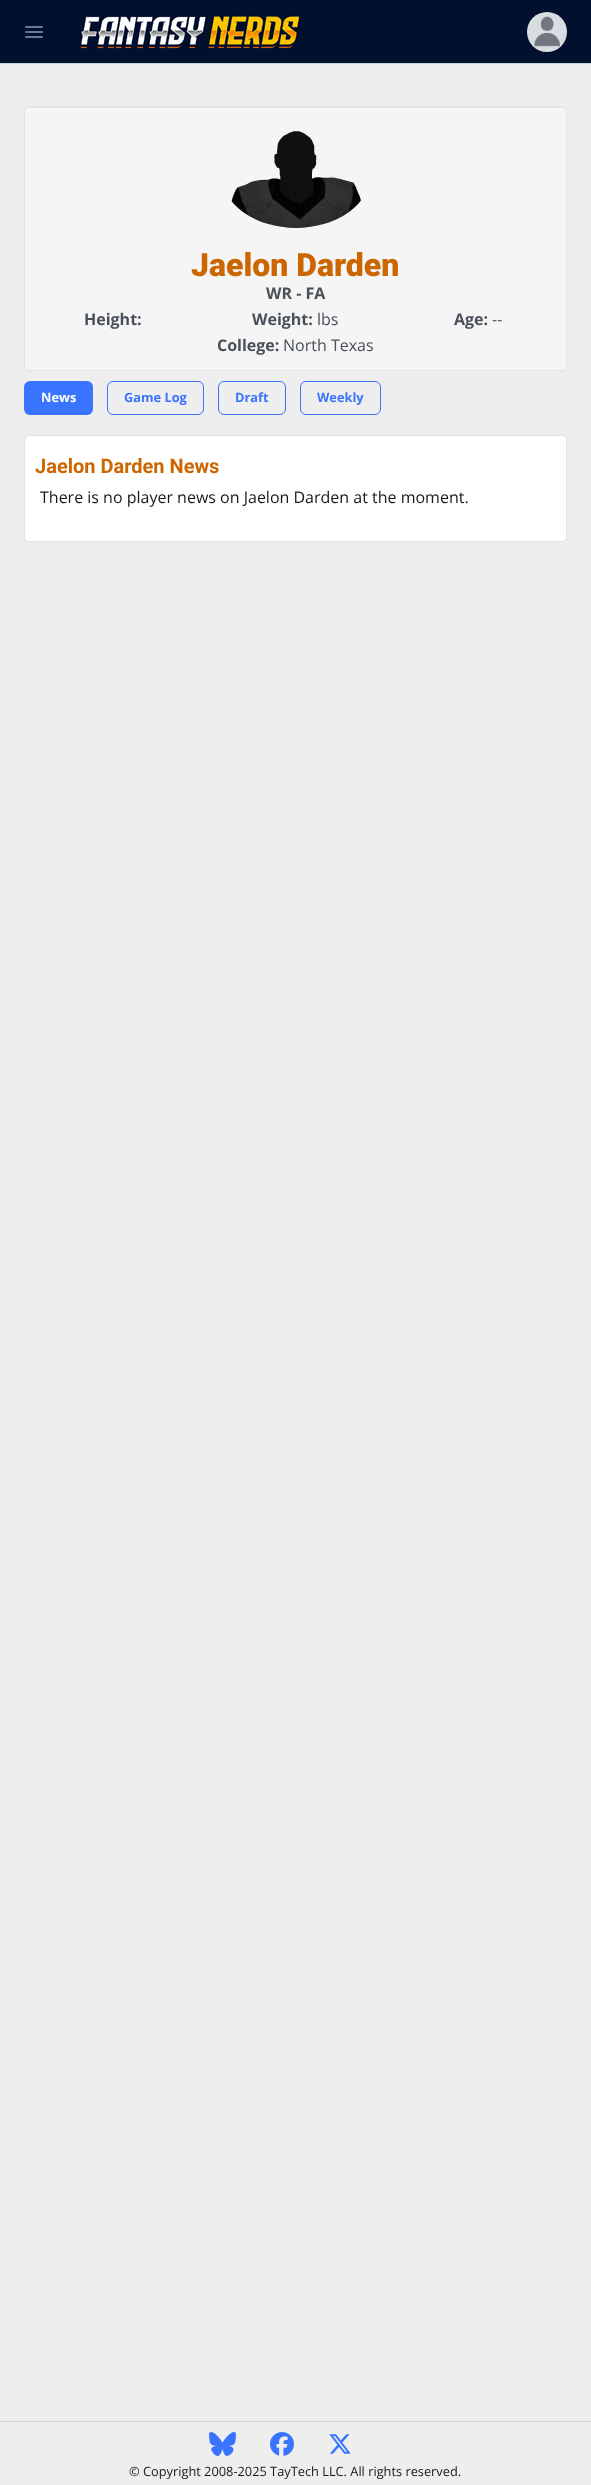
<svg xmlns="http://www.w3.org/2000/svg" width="591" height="2485">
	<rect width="100%" height="100%" fill="#EEEEEE" />
	<rect x="0" y="0" width="591" height="63" fill="#01102D" />
	<rect x="0" y="63" width="591" height="1" fill="#CBD0DD" />
	<rect x="25" y="26" width="18" height="2" rx="1" fill="#6E7891" />
	<rect x="25" y="31" width="18" height="2" rx="1" fill="#6E7891" />
	<rect x="25" y="36" width="18" height="2" rx="1" fill="#6E7891" />
	<image x="80" y="15" width="220" height="34" href="assets/img1.png" />
	<image x="527" y="12" width="40" height="40" href="assets/img2.png" />
	<rect x="24" y="106" width="543" height="265" rx="4" fill="#F5F5F5" />
	<path d="M28 108H563C565 108 566 109 566 111V110C566 108 565 107 563 107H28C26 107 25 108 25 110V111C25 109 26 108 28 108Z" fill="#E9E9E9" />
	<rect x="24.5" y="106.5" width="542" height="264" rx="3.5" fill="none" stroke="#E3E3E3" />
	<image x="231" y="131" width="130" height="97" href="assets/img3.png" />
	<text x="191" y="276" font-family="Roboto" font-size="32" font-weight="900" fill="#CC6600">Jaelon Darden</text>
	<g font-family="Open Sans" font-size="16" font-weight="700" fill="#49505A">
		<text x="266" y="299">WR - FA</text>
		<text x="84" y="325">Height:</text>
		<text x="252" y="325">Weight:</text>
	</g>
	<text x="317" y="325" font-family="Open Sans" font-size="16" fill="#49505A">lbs</text>
	<text x="454" y="325" font-family="Open Sans" font-size="16" font-weight="700" fill="#49505A">Age:</text>
	<text x="492" y="325" font-family="Open Sans" font-size="16" fill="#49505A">--</text>
	<text x="217" y="351" font-family="Open Sans" font-size="16" font-weight="700" fill="#49505A">College:</text>
	<text x="283" y="351" font-family="Open Sans" font-size="16" fill="#49505A">North Texas</text>
	<rect x="24" y="381" width="69" height="34" rx="6" fill="#3874FF" />
	<text x="41" y="402" font-family="Open Sans" font-size="12.8" font-weight="700" fill="#FFFFFF">News</text>
	<rect x="107.5" y="381.5" width="96" height="33" rx="5.5" fill="none" stroke="#3874FF" />
	<text x="124" y="402" font-family="Open Sans" font-size="12.8" font-weight="700" fill="#3874FF">Game Log</text>
	<rect x="218.5" y="381.5" width="67" height="33" rx="5.5" fill="none" stroke="#3874FF" />
	<text x="235" y="402" font-family="Open Sans" font-size="12.8" font-weight="700" fill="#3874FF">Draft</text>
	<rect x="300.5" y="381.5" width="80" height="33" rx="5.5" fill="none" stroke="#3874FF" />
	<text x="317" y="402" font-family="Open Sans" font-size="12.8" font-weight="700" fill="#3874FF">Weekly</text>
	<rect x="24.5" y="435.5" width="542" height="106" rx="4.5" fill="#FFFFFF" stroke="#E3E3E3" />
	<text x="35" y="473" font-family="Roboto" font-size="20" font-weight="700" fill="#CC6600">Jaelon Darden News</text>
	<text x="40" y="503" font-family="Open Sans" font-size="16" fill="#16191E">There is no player news on Jaelon Darden at the moment.</text>
	<rect x="0" y="2421" width="591" height="1" fill="#CBD0DD" />
	<image x="209" y="2432" width="27" height="24" href="assets/img4.png" />
	<image x="270" y="2432" width="24" height="24" href="assets/img5.png" />
	<image x="329" y="2434" width="22" height="20" href="assets/img6.png" />
	<text x="129" y="2476" font-family="Open Sans" font-size="12.8" fill="#16191E">© Copyright 2008-2025 TayTech LLC. All rights reserved.</text>
</svg>
